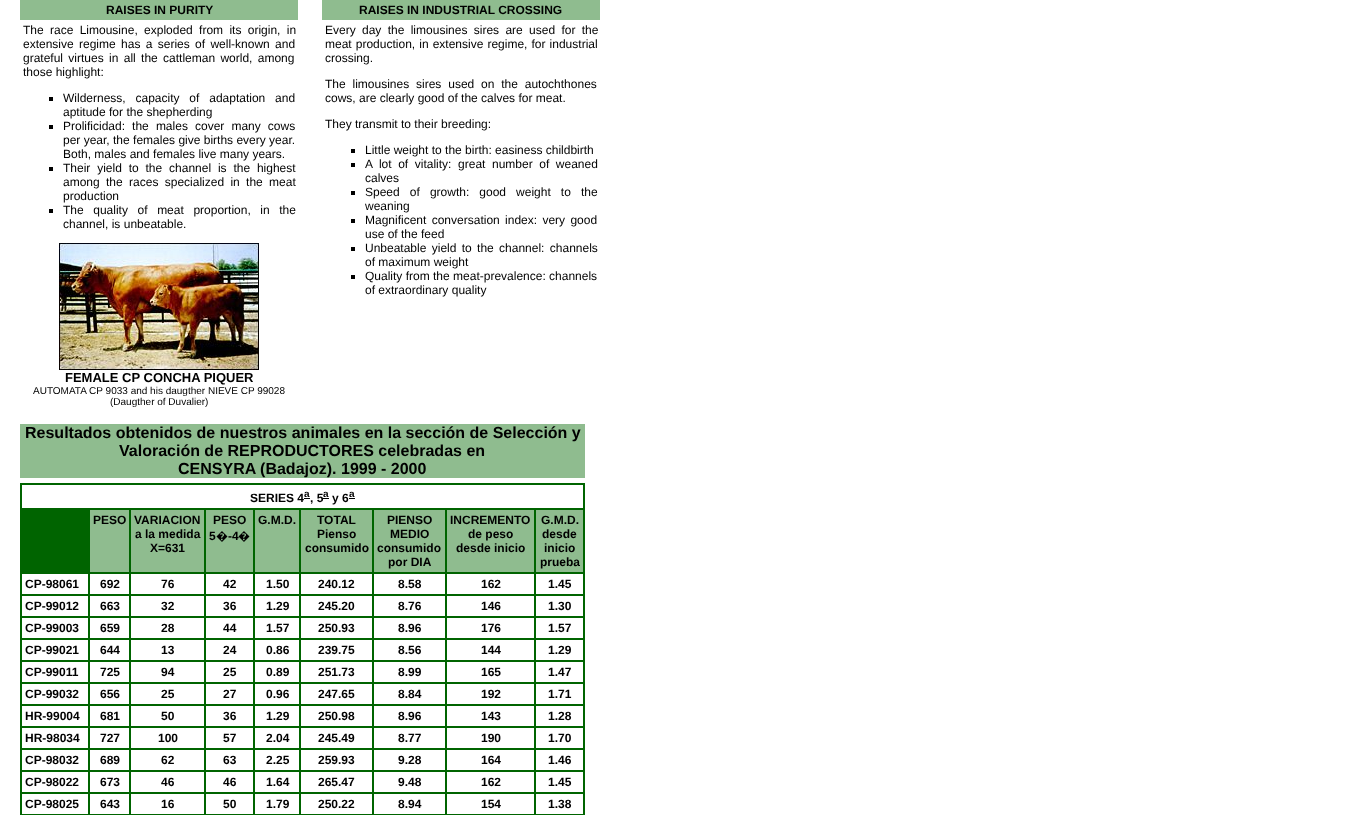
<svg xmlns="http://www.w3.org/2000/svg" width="1368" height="815">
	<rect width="100%" height="100%" fill="#FFFFFF" />
	<rect x="20" y="0" width="278" height="20" fill="#8FBC8F" />
	<text x="106" y="14" font-family="Liberation Sans" font-size="12" font-weight="700" fill="#000000">RAISES IN PURITY</text>
	<rect x="322" y="0" width="278" height="20" fill="#8FBC8F" />
	<text x="359" y="14" font-family="Liberation Sans" font-size="12" font-weight="700" fill="#000000">RAISES IN INDUSTRIAL CROSSING</text>
	<g font-family="Liberation Sans" font-size="12" fill="#000000">
		<text x="23" y="34" word-spacing="3">The race Limousine, exploded from its origin, in</text>
		<text x="23" y="48" word-spacing="2">extensive regime has a series of well-known and</text>
		<text x="23" y="62" word-spacing="2">grateful virtues in all the cattleman world, among</text>
		<text x="23" y="76">those highlight:</text>
	</g>
	<rect x="49" y="97" width="4" height="4" fill="#000000" />
	<g font-family="Liberation Sans" font-size="12" fill="#000000">
		<text x="63" y="102" word-spacing="6.5">Wilderness, capacity of adaptation and</text>
		<text x="63" y="116">aptitude for the shepherding</text>
	</g>
	<rect x="49" y="125" width="4" height="4" fill="#000000" />
	<g font-family="Liberation Sans" font-size="12" fill="#000000">
		<text x="63" y="130" word-spacing="3.75">Prolificidad: the males cover many cows</text>
		<text x="63" y="144">per year, the females give births every year.</text>
		<text x="63" y="158">Both, males and females live many years.</text>
	</g>
	<rect x="49" y="167" width="4" height="4" fill="#000000" />
	<g font-family="Liberation Sans" font-size="12" fill="#000000">
		<text x="63" y="172" word-spacing="3.5">Their yield to the channel is the highest</text>
		<text x="63" y="186" word-spacing="3">among the races specialized in the meat</text>
		<text x="63" y="200">production</text>
	</g>
	<rect x="49" y="209" width="4" height="4" fill="#000000" />
	<g font-family="Liberation Sans" font-size="12" fill="#000000">
		<text x="63" y="214" word-spacing="6.25">The quality of meat proportion, in the</text>
		<text x="63" y="228">channel, is unbeatable.</text>
	</g>
	<image x="59" y="243" width="200" height="127" href="assets/img1.png" />
	<text x="65" y="382" font-family="Liberation Sans" font-size="13" font-weight="700" fill="#000000">FEMALE CP CONCHA PIQUER</text>
	<g font-family="Liberation Sans" font-size="10" fill="#000000">
		<text x="33" y="394">AUTOMATA CP 9033 and his daugther NIEVE CP 99028</text>
		<text x="110" y="405">(Daugther of Duvalier)</text>
	</g>
	<g font-family="Liberation Sans" font-size="12" fill="#000000">
		<text x="325" y="34" word-spacing="3">Every day the limousines sires are used for the</text>
		<text x="325" y="48" word-spacing="0.75">meat production, in extensive regime, for industrial</text>
		<text x="325" y="62">crossing.</text>
		<text x="325" y="88" word-spacing="3.5">The limousines sires used on the autochthones</text>
		<text x="325" y="102">cows, are clearly good of the calves for meat.</text>
		<text x="325" y="128">They transmit to their breeding:</text>
	</g>
	<rect x="351" y="149" width="4" height="4" fill="#000000" />
	<text x="365" y="154" font-family="Liberation Sans" font-size="12" fill="#000000">Little weight to the birth: easiness childbirth</text>
	<rect x="351" y="163" width="4" height="4" fill="#000000" />
	<g font-family="Liberation Sans" font-size="12" fill="#000000">
		<text x="365" y="168" word-spacing="3.25">A lot of vitality: great number of weaned</text>
		<text x="365" y="182">calves</text>
	</g>
	<rect x="351" y="191" width="4" height="4" fill="#000000" />
	<g font-family="Liberation Sans" font-size="12" fill="#000000">
		<text x="365" y="196" word-spacing="6.75">Speed of growth: good weight to the</text>
		<text x="365" y="210">weaning</text>
	</g>
	<rect x="351" y="219" width="4" height="4" fill="#000000" />
	<g font-family="Liberation Sans" font-size="12" fill="#000000">
		<text x="365" y="224" word-spacing="2">Magnificent conversation index: very good</text>
		<text x="365" y="238">use of the feed</text>
	</g>
	<rect x="351" y="247" width="4" height="4" fill="#000000" />
	<g font-family="Liberation Sans" font-size="12" fill="#000000">
		<text x="365" y="252" word-spacing="2">Unbeatable yield to the channel: channels</text>
		<text x="365" y="266">of maximum weight</text>
	</g>
	<rect x="351" y="275" width="4" height="4" fill="#000000" />
	<g font-family="Liberation Sans" font-size="12" fill="#000000">
		<text x="365" y="280">Quality from the meat-prevalence: channels</text>
		<text x="365" y="294">of extraordinary quality</text>
	</g>
	<rect x="20" y="424" width="565" height="54" fill="#8FBC8F" />
	<g font-family="Liberation Sans" font-size="16" font-weight="700" fill="#000000">
		<text x="25" y="438">Resultados obtenidos de nuestros animales en la sección de Selección y</text>
		<text x="119" y="456">Valoración de REPRODUCTORES celebradas en</text>
		<text x="178" y="474">CENSYRA (Badajoz). 1999 - 2000</text>
	</g>
	<rect x="20.5" y="483.5" width="564" height="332" fill="none" stroke="#006400" />
	<rect x="21.5" y="484.5" width="562" height="24" fill="none" stroke="#006400" />
	<text x="250" y="502" font-family="Liberation Sans" font-size="12" font-weight="700" fill="#000000">SERIES 4</text>
	<text x="304" y="497" font-family="Liberation Sans" font-size="10" font-weight="700" fill="#000000">a</text>
	<text x="310" y="502" font-family="Liberation Sans" font-size="12" font-weight="700" fill="#000000">, 5</text>
	<rect x="304" y="498" width="6" height="1" fill="#000000" />
	<rect x="323" y="498" width="6" height="1" fill="#000000" />
	<text x="323" y="497" font-family="Liberation Sans" font-size="10" font-weight="700" fill="#000000">a</text>
	<text x="332" y="502" font-family="Liberation Sans" font-size="12" font-weight="700" fill="#000000">y 6</text>
	<rect x="349" y="498" width="6" height="1" fill="#000000" />
	<text x="349" y="497" font-family="Liberation Sans" font-size="10" font-weight="700" fill="#000000">a</text>
	<rect x="90" y="510" width="493" height="62" fill="#8FBC8F" />
	<rect x="21" y="509" width="68" height="64" fill="#006400" />
	<rect x="89.5" y="509.5" width="40" height="63" fill="none" stroke="#006400" />
	<text x="93" y="524" font-family="Liberation Sans" font-size="12" font-weight="700" fill="#000000">PESO</text>
	<rect x="130.5" y="509.5" width="74" height="63" fill="none" stroke="#006400" />
	<g font-family="Liberation Sans" font-size="12" font-weight="700" fill="#000000">
		<text x="134" y="524">VARIACION</text>
		<text x="135" y="538">a la medida</text>
		<text x="150" y="552">X=631</text>
	</g>
	<rect x="205.5" y="509.5" width="48" height="63" fill="none" stroke="#006400" />
	<g font-family="Liberation Sans" font-size="12" font-weight="700" fill="#000000">
		<text x="213" y="524">PESO</text>
		<text x="209" y="540">5</text>
	</g>
	<text x="216" y="540" font-family="Noto Sans" font-size="12" font-weight="700" fill="#000000">�</text>
	<text x="228" y="540" font-family="Liberation Sans" font-size="12" font-weight="700" fill="#000000">-4</text>
	<text x="238" y="540" font-family="Noto Sans" font-size="12" font-weight="700" fill="#000000">�</text>
	<rect x="254.5" y="509.5" width="45" height="63" fill="none" stroke="#006400" />
	<text x="258" y="524" font-family="Liberation Sans" font-size="12" font-weight="700" fill="#000000">G.M.D.</text>
	<rect x="300.5" y="509.5" width="72" height="63" fill="none" stroke="#006400" />
	<g font-family="Liberation Sans" font-size="12" font-weight="700" fill="#000000">
		<text x="317" y="524">TOTAL</text>
		<text x="317" y="538">Pienso</text>
		<text x="305" y="552">consumido</text>
	</g>
	<rect x="373.5" y="509.5" width="72" height="63" fill="none" stroke="#006400" />
	<g font-family="Liberation Sans" font-size="12" font-weight="700" fill="#000000">
		<text x="387" y="524">PIENSO</text>
		<text x="390" y="538">MEDIO</text>
		<text x="377" y="552">consumido</text>
		<text x="388" y="566">por DIA</text>
	</g>
	<rect x="446.5" y="509.5" width="88" height="63" fill="none" stroke="#006400" />
	<g font-family="Liberation Sans" font-size="12" font-weight="700" fill="#000000">
		<text x="450" y="524">INCREMENTO</text>
		<text x="468" y="538">de peso</text>
		<text x="456" y="552">desde inicio</text>
	</g>
	<rect x="535.5" y="509.5" width="48" height="63" fill="none" stroke="#006400" />
	<g font-family="Liberation Sans" font-size="12" font-weight="700" fill="#000000">
		<text x="541" y="524">G.M.D.</text>
		<text x="542" y="538">desde</text>
		<text x="544" y="552">inicio</text>
		<text x="540" y="566">prueba</text>
	</g>
	<rect x="21.5" y="573.5" width="67" height="21" fill="none" stroke="#006400" />
	<text x="25" y="588" font-family="Liberation Sans" font-size="12" font-weight="700" fill="#000000">CP-98061</text>
	<rect x="89.5" y="573.5" width="40" height="21" fill="none" stroke="#006400" />
	<text x="100" y="588" font-family="Liberation Sans" font-size="12" font-weight="700" fill="#000000">692</text>
	<rect x="130.5" y="573.5" width="74" height="21" fill="none" stroke="#006400" />
	<text x="161" y="588" font-family="Liberation Sans" font-size="12" font-weight="700" fill="#000000">76</text>
	<rect x="205.5" y="573.5" width="48" height="21" fill="none" stroke="#006400" />
	<text x="223" y="588" font-family="Liberation Sans" font-size="12" font-weight="700" fill="#000000">42</text>
	<rect x="254.5" y="573.5" width="45" height="21" fill="none" stroke="#006400" />
	<text x="266" y="588" font-family="Liberation Sans" font-size="12" font-weight="700" fill="#000000">1.50</text>
	<rect x="300.5" y="573.5" width="72" height="21" fill="none" stroke="#006400" />
	<text x="318" y="588" font-family="Liberation Sans" font-size="12" font-weight="700" fill="#000000">240.12</text>
	<rect x="373.5" y="573.5" width="72" height="21" fill="none" stroke="#006400" />
	<text x="398" y="588" font-family="Liberation Sans" font-size="12" font-weight="700" fill="#000000">8.58</text>
	<rect x="446.5" y="573.5" width="88" height="21" fill="none" stroke="#006400" />
	<text x="481" y="588" font-family="Liberation Sans" font-size="12" font-weight="700" fill="#000000">162</text>
	<rect x="535.5" y="573.5" width="48" height="21" fill="none" stroke="#006400" />
	<text x="548" y="588" font-family="Liberation Sans" font-size="12" font-weight="700" fill="#000000">1.45</text>
	<rect x="21.5" y="595.5" width="67" height="21" fill="none" stroke="#006400" />
	<text x="25" y="610" font-family="Liberation Sans" font-size="12" font-weight="700" fill="#000000">CP-99012</text>
	<rect x="89.5" y="595.5" width="40" height="21" fill="none" stroke="#006400" />
	<text x="100" y="610" font-family="Liberation Sans" font-size="12" font-weight="700" fill="#000000">663</text>
	<rect x="130.5" y="595.5" width="74" height="21" fill="none" stroke="#006400" />
	<text x="161" y="610" font-family="Liberation Sans" font-size="12" font-weight="700" fill="#000000">32</text>
	<rect x="205.5" y="595.5" width="48" height="21" fill="none" stroke="#006400" />
	<text x="223" y="610" font-family="Liberation Sans" font-size="12" font-weight="700" fill="#000000">36</text>
	<rect x="254.5" y="595.5" width="45" height="21" fill="none" stroke="#006400" />
	<text x="266" y="610" font-family="Liberation Sans" font-size="12" font-weight="700" fill="#000000">1.29</text>
	<rect x="300.5" y="595.5" width="72" height="21" fill="none" stroke="#006400" />
	<text x="318" y="610" font-family="Liberation Sans" font-size="12" font-weight="700" fill="#000000">245.20</text>
	<rect x="373.5" y="595.5" width="72" height="21" fill="none" stroke="#006400" />
	<text x="398" y="610" font-family="Liberation Sans" font-size="12" font-weight="700" fill="#000000">8.76</text>
	<rect x="446.5" y="595.5" width="88" height="21" fill="none" stroke="#006400" />
	<text x="481" y="610" font-family="Liberation Sans" font-size="12" font-weight="700" fill="#000000">146</text>
	<rect x="535.5" y="595.5" width="48" height="21" fill="none" stroke="#006400" />
	<text x="548" y="610" font-family="Liberation Sans" font-size="12" font-weight="700" fill="#000000">1.30</text>
	<rect x="21.5" y="617.5" width="67" height="21" fill="none" stroke="#006400" />
	<text x="25" y="632" font-family="Liberation Sans" font-size="12" font-weight="700" fill="#000000">CP-99003</text>
	<rect x="89.5" y="617.5" width="40" height="21" fill="none" stroke="#006400" />
	<text x="100" y="632" font-family="Liberation Sans" font-size="12" font-weight="700" fill="#000000">659</text>
	<rect x="130.5" y="617.5" width="74" height="21" fill="none" stroke="#006400" />
	<text x="161" y="632" font-family="Liberation Sans" font-size="12" font-weight="700" fill="#000000">28</text>
	<rect x="205.5" y="617.5" width="48" height="21" fill="none" stroke="#006400" />
	<text x="223" y="632" font-family="Liberation Sans" font-size="12" font-weight="700" fill="#000000">44</text>
	<rect x="254.5" y="617.5" width="45" height="21" fill="none" stroke="#006400" />
	<text x="266" y="632" font-family="Liberation Sans" font-size="12" font-weight="700" fill="#000000">1.57</text>
	<rect x="300.5" y="617.5" width="72" height="21" fill="none" stroke="#006400" />
	<text x="318" y="632" font-family="Liberation Sans" font-size="12" font-weight="700" fill="#000000">250.93</text>
	<rect x="373.5" y="617.5" width="72" height="21" fill="none" stroke="#006400" />
	<text x="398" y="632" font-family="Liberation Sans" font-size="12" font-weight="700" fill="#000000">8.96</text>
	<rect x="446.5" y="617.5" width="88" height="21" fill="none" stroke="#006400" />
	<text x="481" y="632" font-family="Liberation Sans" font-size="12" font-weight="700" fill="#000000">176</text>
	<rect x="535.5" y="617.5" width="48" height="21" fill="none" stroke="#006400" />
	<text x="548" y="632" font-family="Liberation Sans" font-size="12" font-weight="700" fill="#000000">1.57</text>
	<rect x="21.5" y="639.5" width="67" height="21" fill="none" stroke="#006400" />
	<text x="25" y="654" font-family="Liberation Sans" font-size="12" font-weight="700" fill="#000000">CP-99021</text>
	<rect x="89.5" y="639.5" width="40" height="21" fill="none" stroke="#006400" />
	<text x="100" y="654" font-family="Liberation Sans" font-size="12" font-weight="700" fill="#000000">644</text>
	<rect x="130.5" y="639.5" width="74" height="21" fill="none" stroke="#006400" />
	<text x="161" y="654" font-family="Liberation Sans" font-size="12" font-weight="700" fill="#000000">13</text>
	<rect x="205.5" y="639.5" width="48" height="21" fill="none" stroke="#006400" />
	<text x="223" y="654" font-family="Liberation Sans" font-size="12" font-weight="700" fill="#000000">24</text>
	<rect x="254.5" y="639.5" width="45" height="21" fill="none" stroke="#006400" />
	<text x="266" y="654" font-family="Liberation Sans" font-size="12" font-weight="700" fill="#000000">0.86</text>
	<rect x="300.5" y="639.5" width="72" height="21" fill="none" stroke="#006400" />
	<text x="318" y="654" font-family="Liberation Sans" font-size="12" font-weight="700" fill="#000000">239.75</text>
	<rect x="373.5" y="639.5" width="72" height="21" fill="none" stroke="#006400" />
	<text x="398" y="654" font-family="Liberation Sans" font-size="12" font-weight="700" fill="#000000">8.56</text>
	<rect x="446.5" y="639.5" width="88" height="21" fill="none" stroke="#006400" />
	<text x="481" y="654" font-family="Liberation Sans" font-size="12" font-weight="700" fill="#000000">144</text>
	<rect x="535.5" y="639.5" width="48" height="21" fill="none" stroke="#006400" />
	<text x="548" y="654" font-family="Liberation Sans" font-size="12" font-weight="700" fill="#000000">1.29</text>
	<rect x="21.5" y="661.5" width="67" height="21" fill="none" stroke="#006400" />
	<text x="25" y="676" font-family="Liberation Sans" font-size="12" font-weight="700" fill="#000000">CP-99011</text>
	<rect x="89.5" y="661.5" width="40" height="21" fill="none" stroke="#006400" />
	<text x="100" y="676" font-family="Liberation Sans" font-size="12" font-weight="700" fill="#000000">725</text>
	<rect x="130.5" y="661.5" width="74" height="21" fill="none" stroke="#006400" />
	<text x="161" y="676" font-family="Liberation Sans" font-size="12" font-weight="700" fill="#000000">94</text>
	<rect x="205.5" y="661.5" width="48" height="21" fill="none" stroke="#006400" />
	<text x="223" y="676" font-family="Liberation Sans" font-size="12" font-weight="700" fill="#000000">25</text>
	<rect x="254.5" y="661.5" width="45" height="21" fill="none" stroke="#006400" />
	<text x="266" y="676" font-family="Liberation Sans" font-size="12" font-weight="700" fill="#000000">0.89</text>
	<rect x="300.5" y="661.5" width="72" height="21" fill="none" stroke="#006400" />
	<text x="318" y="676" font-family="Liberation Sans" font-size="12" font-weight="700" fill="#000000">251.73</text>
	<rect x="373.5" y="661.5" width="72" height="21" fill="none" stroke="#006400" />
	<text x="398" y="676" font-family="Liberation Sans" font-size="12" font-weight="700" fill="#000000">8.99</text>
	<rect x="446.5" y="661.5" width="88" height="21" fill="none" stroke="#006400" />
	<text x="481" y="676" font-family="Liberation Sans" font-size="12" font-weight="700" fill="#000000">165</text>
	<rect x="535.5" y="661.5" width="48" height="21" fill="none" stroke="#006400" />
	<text x="548" y="676" font-family="Liberation Sans" font-size="12" font-weight="700" fill="#000000">1.47</text>
	<rect x="21.5" y="683.5" width="67" height="21" fill="none" stroke="#006400" />
	<text x="25" y="698" font-family="Liberation Sans" font-size="12" font-weight="700" fill="#000000">CP-99032</text>
	<rect x="89.5" y="683.5" width="40" height="21" fill="none" stroke="#006400" />
	<text x="100" y="698" font-family="Liberation Sans" font-size="12" font-weight="700" fill="#000000">656</text>
	<rect x="130.5" y="683.5" width="74" height="21" fill="none" stroke="#006400" />
	<text x="161" y="698" font-family="Liberation Sans" font-size="12" font-weight="700" fill="#000000">25</text>
	<rect x="205.5" y="683.5" width="48" height="21" fill="none" stroke="#006400" />
	<text x="223" y="698" font-family="Liberation Sans" font-size="12" font-weight="700" fill="#000000">27</text>
	<rect x="254.5" y="683.5" width="45" height="21" fill="none" stroke="#006400" />
	<text x="266" y="698" font-family="Liberation Sans" font-size="12" font-weight="700" fill="#000000">0.96</text>
	<rect x="300.5" y="683.5" width="72" height="21" fill="none" stroke="#006400" />
	<text x="318" y="698" font-family="Liberation Sans" font-size="12" font-weight="700" fill="#000000">247.65</text>
	<rect x="373.5" y="683.5" width="72" height="21" fill="none" stroke="#006400" />
	<text x="398" y="698" font-family="Liberation Sans" font-size="12" font-weight="700" fill="#000000">8.84</text>
	<rect x="446.5" y="683.5" width="88" height="21" fill="none" stroke="#006400" />
	<text x="481" y="698" font-family="Liberation Sans" font-size="12" font-weight="700" fill="#000000">192</text>
	<rect x="535.5" y="683.5" width="48" height="21" fill="none" stroke="#006400" />
	<text x="548" y="698" font-family="Liberation Sans" font-size="12" font-weight="700" fill="#000000">1.71</text>
	<rect x="21.5" y="705.5" width="67" height="21" fill="none" stroke="#006400" />
	<text x="25" y="720" font-family="Liberation Sans" font-size="12" font-weight="700" fill="#000000">HR-99004</text>
	<rect x="89.5" y="705.5" width="40" height="21" fill="none" stroke="#006400" />
	<text x="100" y="720" font-family="Liberation Sans" font-size="12" font-weight="700" fill="#000000">681</text>
	<rect x="130.5" y="705.5" width="74" height="21" fill="none" stroke="#006400" />
	<text x="161" y="720" font-family="Liberation Sans" font-size="12" font-weight="700" fill="#000000">50</text>
	<rect x="205.5" y="705.5" width="48" height="21" fill="none" stroke="#006400" />
	<text x="223" y="720" font-family="Liberation Sans" font-size="12" font-weight="700" fill="#000000">36</text>
	<rect x="254.5" y="705.5" width="45" height="21" fill="none" stroke="#006400" />
	<text x="266" y="720" font-family="Liberation Sans" font-size="12" font-weight="700" fill="#000000">1.29</text>
	<rect x="300.5" y="705.5" width="72" height="21" fill="none" stroke="#006400" />
	<text x="318" y="720" font-family="Liberation Sans" font-size="12" font-weight="700" fill="#000000">250.98</text>
	<rect x="373.5" y="705.5" width="72" height="21" fill="none" stroke="#006400" />
	<text x="398" y="720" font-family="Liberation Sans" font-size="12" font-weight="700" fill="#000000">8.96</text>
	<rect x="446.5" y="705.5" width="88" height="21" fill="none" stroke="#006400" />
	<text x="481" y="720" font-family="Liberation Sans" font-size="12" font-weight="700" fill="#000000">143</text>
	<rect x="535.5" y="705.5" width="48" height="21" fill="none" stroke="#006400" />
	<text x="548" y="720" font-family="Liberation Sans" font-size="12" font-weight="700" fill="#000000">1.28</text>
	<rect x="21.5" y="727.5" width="67" height="21" fill="none" stroke="#006400" />
	<text x="25" y="742" font-family="Liberation Sans" font-size="12" font-weight="700" fill="#000000">HR-98034</text>
	<rect x="89.5" y="727.5" width="40" height="21" fill="none" stroke="#006400" />
	<text x="100" y="742" font-family="Liberation Sans" font-size="12" font-weight="700" fill="#000000">727</text>
	<rect x="130.5" y="727.5" width="74" height="21" fill="none" stroke="#006400" />
	<text x="158" y="742" font-family="Liberation Sans" font-size="12" font-weight="700" fill="#000000">100</text>
	<rect x="205.5" y="727.5" width="48" height="21" fill="none" stroke="#006400" />
	<text x="223" y="742" font-family="Liberation Sans" font-size="12" font-weight="700" fill="#000000">57</text>
	<rect x="254.5" y="727.5" width="45" height="21" fill="none" stroke="#006400" />
	<text x="266" y="742" font-family="Liberation Sans" font-size="12" font-weight="700" fill="#000000">2.04</text>
	<rect x="300.5" y="727.5" width="72" height="21" fill="none" stroke="#006400" />
	<text x="318" y="742" font-family="Liberation Sans" font-size="12" font-weight="700" fill="#000000">245.49</text>
	<rect x="373.5" y="727.5" width="72" height="21" fill="none" stroke="#006400" />
	<text x="398" y="742" font-family="Liberation Sans" font-size="12" font-weight="700" fill="#000000">8.77</text>
	<rect x="446.5" y="727.5" width="88" height="21" fill="none" stroke="#006400" />
	<text x="481" y="742" font-family="Liberation Sans" font-size="12" font-weight="700" fill="#000000">190</text>
	<rect x="535.5" y="727.5" width="48" height="21" fill="none" stroke="#006400" />
	<text x="548" y="742" font-family="Liberation Sans" font-size="12" font-weight="700" fill="#000000">1.70</text>
	<rect x="21.5" y="749.5" width="67" height="21" fill="none" stroke="#006400" />
	<text x="25" y="764" font-family="Liberation Sans" font-size="12" font-weight="700" fill="#000000">CP-98032</text>
	<rect x="89.5" y="749.5" width="40" height="21" fill="none" stroke="#006400" />
	<text x="100" y="764" font-family="Liberation Sans" font-size="12" font-weight="700" fill="#000000">689</text>
	<rect x="130.5" y="749.5" width="74" height="21" fill="none" stroke="#006400" />
	<text x="161" y="764" font-family="Liberation Sans" font-size="12" font-weight="700" fill="#000000">62</text>
	<rect x="205.5" y="749.5" width="48" height="21" fill="none" stroke="#006400" />
	<text x="223" y="764" font-family="Liberation Sans" font-size="12" font-weight="700" fill="#000000">63</text>
	<rect x="254.5" y="749.5" width="45" height="21" fill="none" stroke="#006400" />
	<text x="266" y="764" font-family="Liberation Sans" font-size="12" font-weight="700" fill="#000000">2.25</text>
	<rect x="300.5" y="749.5" width="72" height="21" fill="none" stroke="#006400" />
	<text x="318" y="764" font-family="Liberation Sans" font-size="12" font-weight="700" fill="#000000">259.93</text>
	<rect x="373.5" y="749.5" width="72" height="21" fill="none" stroke="#006400" />
	<text x="398" y="764" font-family="Liberation Sans" font-size="12" font-weight="700" fill="#000000">9.28</text>
	<rect x="446.5" y="749.5" width="88" height="21" fill="none" stroke="#006400" />
	<text x="481" y="764" font-family="Liberation Sans" font-size="12" font-weight="700" fill="#000000">164</text>
	<rect x="535.5" y="749.5" width="48" height="21" fill="none" stroke="#006400" />
	<text x="548" y="764" font-family="Liberation Sans" font-size="12" font-weight="700" fill="#000000">1.46</text>
	<rect x="21.5" y="771.5" width="67" height="21" fill="none" stroke="#006400" />
	<text x="25" y="786" font-family="Liberation Sans" font-size="12" font-weight="700" fill="#000000">CP-98022</text>
	<rect x="89.5" y="771.5" width="40" height="21" fill="none" stroke="#006400" />
	<text x="100" y="786" font-family="Liberation Sans" font-size="12" font-weight="700" fill="#000000">673</text>
	<rect x="130.5" y="771.5" width="74" height="21" fill="none" stroke="#006400" />
	<text x="161" y="786" font-family="Liberation Sans" font-size="12" font-weight="700" fill="#000000">46</text>
	<rect x="205.5" y="771.5" width="48" height="21" fill="none" stroke="#006400" />
	<text x="223" y="786" font-family="Liberation Sans" font-size="12" font-weight="700" fill="#000000">46</text>
	<rect x="254.5" y="771.5" width="45" height="21" fill="none" stroke="#006400" />
	<text x="266" y="786" font-family="Liberation Sans" font-size="12" font-weight="700" fill="#000000">1.64</text>
	<rect x="300.5" y="771.5" width="72" height="21" fill="none" stroke="#006400" />
	<text x="318" y="786" font-family="Liberation Sans" font-size="12" font-weight="700" fill="#000000">265.47</text>
	<rect x="373.5" y="771.5" width="72" height="21" fill="none" stroke="#006400" />
	<text x="398" y="786" font-family="Liberation Sans" font-size="12" font-weight="700" fill="#000000">9.48</text>
	<rect x="446.5" y="771.5" width="88" height="21" fill="none" stroke="#006400" />
	<text x="481" y="786" font-family="Liberation Sans" font-size="12" font-weight="700" fill="#000000">162</text>
	<rect x="535.5" y="771.5" width="48" height="21" fill="none" stroke="#006400" />
	<text x="548" y="786" font-family="Liberation Sans" font-size="12" font-weight="700" fill="#000000">1.45</text>
	<rect x="21.5" y="793.5" width="67" height="21" fill="none" stroke="#006400" />
	<text x="25" y="808" font-family="Liberation Sans" font-size="12" font-weight="700" fill="#000000">CP-98025</text>
	<rect x="89.5" y="793.5" width="40" height="21" fill="none" stroke="#006400" />
	<text x="100" y="808" font-family="Liberation Sans" font-size="12" font-weight="700" fill="#000000">643</text>
	<rect x="130.5" y="793.5" width="74" height="21" fill="none" stroke="#006400" />
	<text x="161" y="808" font-family="Liberation Sans" font-size="12" font-weight="700" fill="#000000">16</text>
	<rect x="205.5" y="793.5" width="48" height="21" fill="none" stroke="#006400" />
	<text x="223" y="808" font-family="Liberation Sans" font-size="12" font-weight="700" fill="#000000">50</text>
	<rect x="254.5" y="793.5" width="45" height="21" fill="none" stroke="#006400" />
	<text x="266" y="808" font-family="Liberation Sans" font-size="12" font-weight="700" fill="#000000">1.79</text>
	<rect x="300.5" y="793.5" width="72" height="21" fill="none" stroke="#006400" />
	<text x="318" y="808" font-family="Liberation Sans" font-size="12" font-weight="700" fill="#000000">250.22</text>
	<rect x="373.5" y="793.5" width="72" height="21" fill="none" stroke="#006400" />
	<text x="398" y="808" font-family="Liberation Sans" font-size="12" font-weight="700" fill="#000000">8.94</text>
	<rect x="446.5" y="793.5" width="88" height="21" fill="none" stroke="#006400" />
	<text x="481" y="808" font-family="Liberation Sans" font-size="12" font-weight="700" fill="#000000">154</text>
	<rect x="535.5" y="793.5" width="48" height="21" fill="none" stroke="#006400" />
	<text x="548" y="808" font-family="Liberation Sans" font-size="12" font-weight="700" fill="#000000">1.38</text>
</svg>
